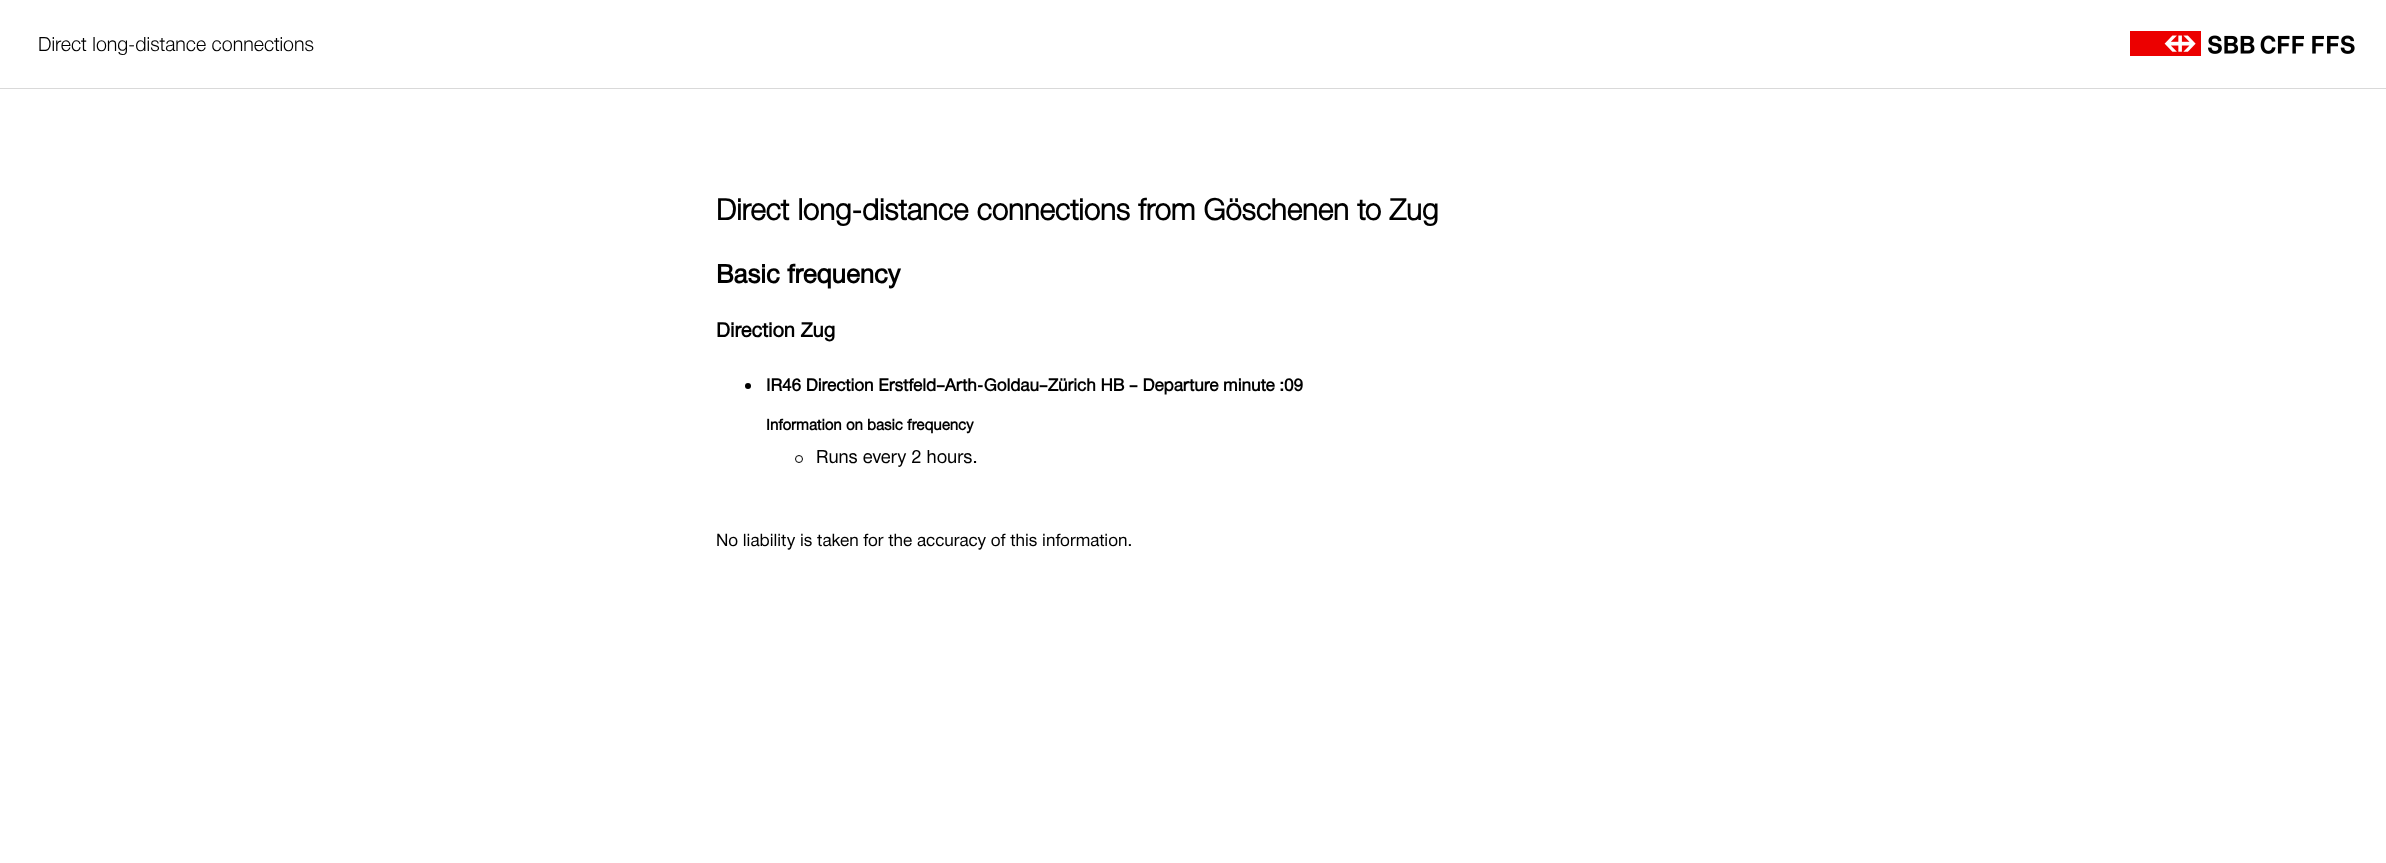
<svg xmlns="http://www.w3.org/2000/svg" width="2386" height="863">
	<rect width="100%" height="100%" fill="#FFFFFF" />
	<rect x="0" y="88" width="2386" height="1" fill="#D9D9D9" />
	<text x="38" y="51" font-family="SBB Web" font-size="20" font-weight="300" fill="#000000">Direct long-distance connections</text>
	<image x="2130" y="31" width="225" height="25" href="assets/img1.png" />
	<text x="716" y="220" font-family="SBB Web" font-size="30" font-weight="700" fill="#000000">Direct long-distance connections from Göschenen to Zug</text>
	<text x="716" y="283" font-family="'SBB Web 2'" font-size="26.5" font-weight="700" fill="#000000">Basic frequency</text>
	<text x="716" y="337" font-family="'SBB Web 2'" font-size="20.5" font-weight="700" fill="#000000">Direction Zug</text>
	<circle cx="748" cy="386" r="3" fill="#000000" />
	<text x="766" y="391" font-family="'SBB Web 2'" font-size="17.6" font-weight="700" fill="#000000">IR46 Direction Erstfeld–Arth-Goldau–Zürich HB – Departure minute :09</text>
	<text x="766" y="430" font-family="'SBB Web 2'" font-size="15.5" font-weight="700" fill="#000000">Information on basic frequency</text>
	<circle cx="799" cy="459" r="3.5" fill="none" stroke="#000000" />
	<text x="816" y="463" font-family="SBB Web" font-size="18.75" fill="#000000">Runs every 2 hours.</text>
	<text x="716" y="546" font-family="SBB Web" font-size="17.6" fill="#000000">No liability is taken for the accuracy of this information.</text>
</svg>
